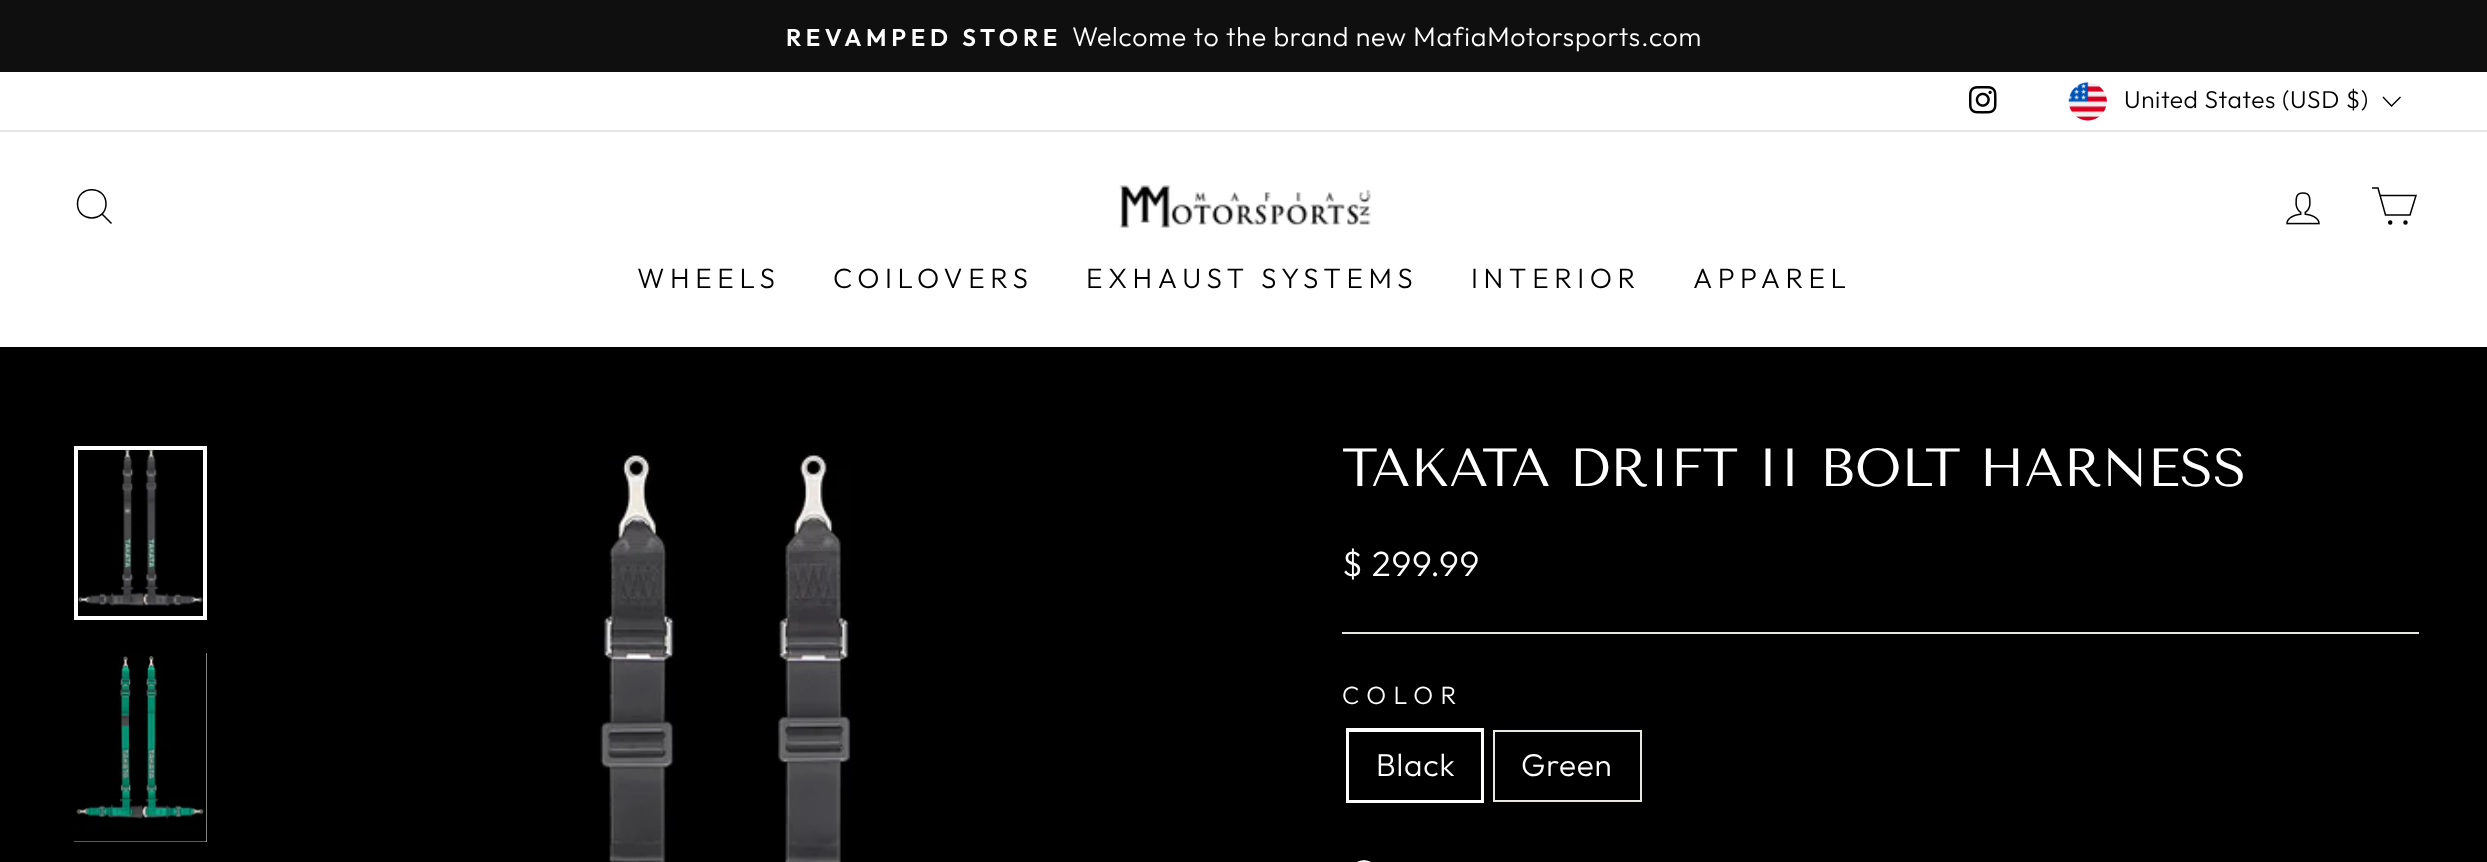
<svg xmlns="http://www.w3.org/2000/svg" width="2487" height="862">
	<rect width="100%" height="100%" fill="#000000" />
	<rect x="0" y="0" width="2487" height="72" fill="#0F0F0F" />
	<text x="786" y="46" font-family="Outfit" font-size="24.1" font-weight="600" letter-spacing="4.75" fill="#FFFFFF">REVAMPED STORE</text>
	<text x="1072" y="46" font-family="Outfit" font-size="26.75" font-weight="300" letter-spacing="0.8" fill="#FFFFFF">Welcome to the brand new MafiaMotorsports.com</text>
	<rect x="0" y="72" width="2487" height="58" fill="#FFFFFF" />
	<image x="1969" y="86" width="28" height="28" href="assets/img1.png" />
	<image x="2068" y="82" width="39" height="39" href="assets/img2.png" />
	<text x="2124" y="108" font-family="Outfit" font-size="24.5" font-weight="300" letter-spacing="0.6" fill="#000000">United States (USD $)</text>
	<path d="M2383 97L2391.5 106L2400.5 97" fill="none" stroke="#000000" stroke-width="1.4" />
	<rect x="0" y="132" width="2487" height="215" fill="#FFFFFF" />
	<rect x="0" y="130" width="2487" height="2" fill="#E6E6E6" />
	<path d="M106 204C106 222.5 77.5 222.5 77.5 204C77.5 185 106 185 106 204ZM111.5 223.5L102 214" fill="none" stroke="#000000" stroke-width="1.5" />
	<image x="1119" y="185" width="252" height="43" href="assets/img3.png" />
	<image x="2286" y="192" width="34" height="33" href="assets/img4.png" />
	<path d="M2380 195.5H2416L2410 215H2385.5L2378 188H2372" fill="none" stroke="#000000" stroke-width="1.5" />
	<circle cx="2390.2" cy="222.6" r="1.5" fill="#000000" stroke="#000000" stroke-width="1.5" />
	<circle cx="2405.5" cy="222.6" r="1.5" fill="#000000" stroke="#000000" stroke-width="1.5" />
	<g font-family="Outfit" font-size="28" font-weight="300" letter-spacing="5.6" fill="#000000">
		<text x="637" y="288">WHEELS</text>
		<text x="833" y="288">COILOVERS</text>
		<text x="1086" y="288">EXHAUST SYSTEMS</text>
		<text x="1471" y="288">INTERIOR</text>
		<text x="1693" y="288">APPAREL</text>
	</g>
	<image x="78" y="450" width="125" height="166" href="assets/img5.png" />
	<rect x="76" y="448" width="129" height="170" fill="none" stroke="#FFFFFF" stroke-width="4" />
	<rect x="74" y="653" width="133" height="189" fill="#FFFFFF" />
	<image x="74" y="653" width="133" height="189" href="assets/img6.png" />
	<image x="236" y="443" width="989" height="419" href="assets/img7.png" />
	<text x="1342" y="486" font-family="Tenor Sans" font-size="53.5" fill="#FFFFFF">TAKATA DRIFT II BOLT HARNESS</text>
	<text x="1342" y="576" font-family="Outfit" font-size="35" font-weight="300" letter-spacing="0.8" fill="#FFFFFF">$ 299.99</text>
	<rect x="1342" y="632" width="1077" height="2" fill="#E8E8E1" />
	<text x="1342" y="704" font-family="Outfit" font-size="25" font-weight="300" letter-spacing="7.5" fill="#FFFFFF">COLOR</text>
	<rect x="1348" y="730" width="134" height="71" fill="none" stroke="#FFFFFF" stroke-width="4" />
	<rect x="1349" y="732" width="132" height="68" fill="#000000" />
	<text x="1376" y="776" font-family="Outfit" font-size="31.5" font-weight="300" letter-spacing="0.8" fill="#FFFFFF">Black</text>
	<rect x="1494" y="731" width="147" height="70" fill="none" stroke="#E8E8E1" stroke-width="2" />
	<text x="1521" y="776" font-family="Outfit" font-size="31.5" font-weight="300" letter-spacing="0.8" fill="#FFFFFF">Green</text>
	<image x="1357" y="860" width="14" height="2" href="assets/img8.png" />
</svg>
